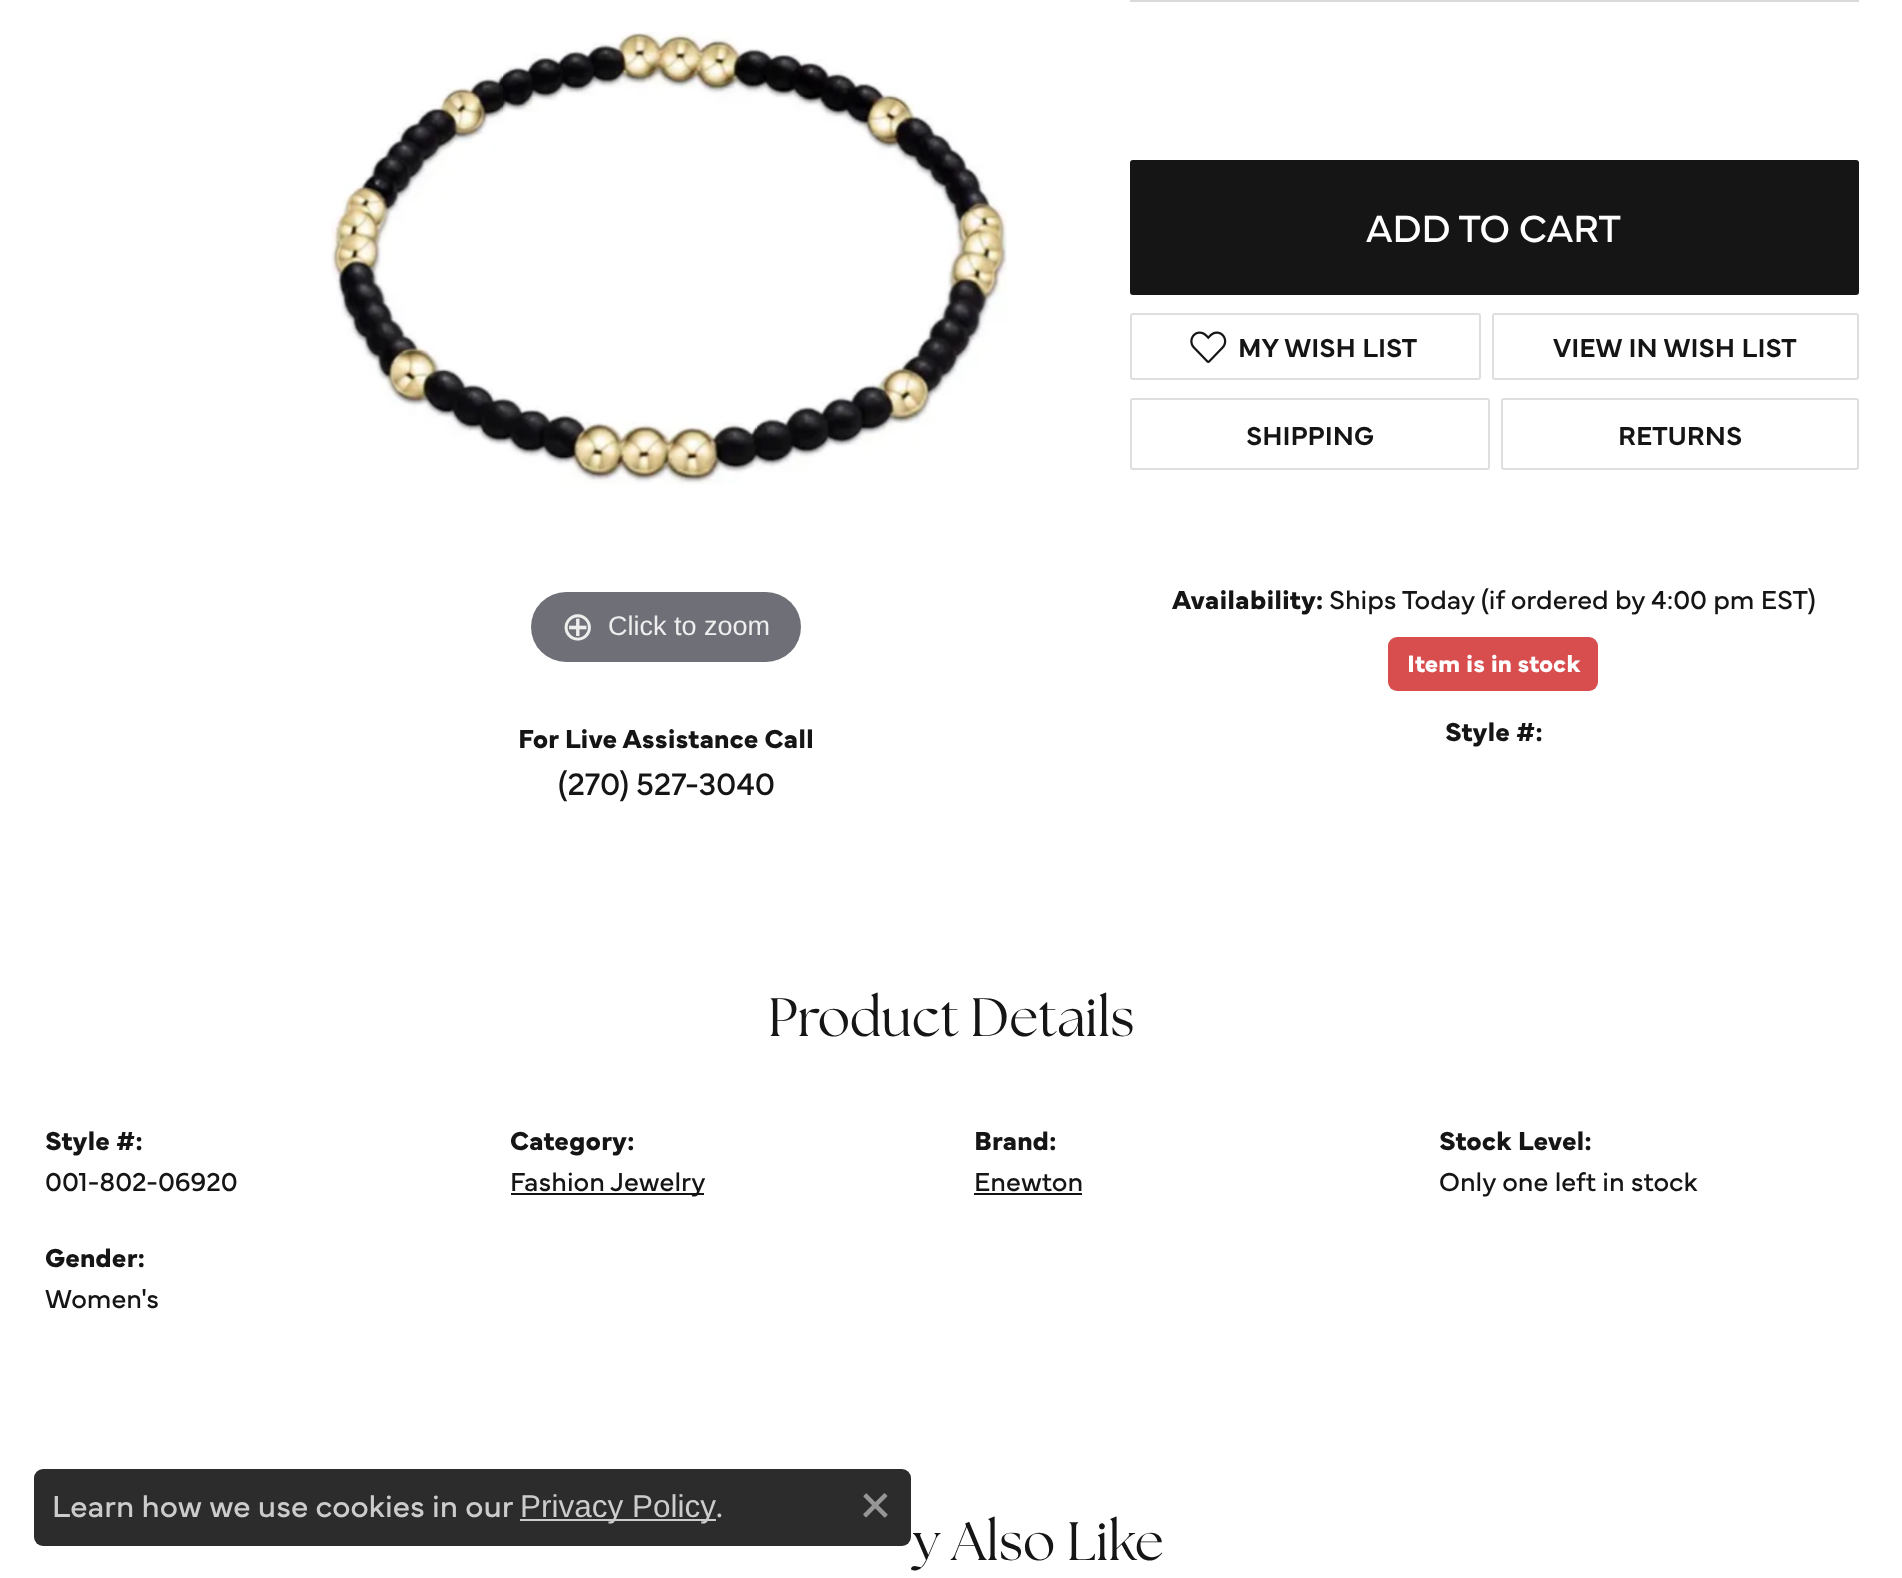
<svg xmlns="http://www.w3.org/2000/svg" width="1902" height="1578">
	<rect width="100%" height="100%" fill="#FFFFFF" />
	<image x="331" y="32" width="676" height="453" href="assets/img1.png" />
	<rect x="531" y="592" width="270" height="70" rx="35" fill="#6F7077" />
	<text x="561" y="640" font-family="DejaVu Sans" font-size="40" fill="#EEEEEE">⊕</text>
	<text x="608" y="635" font-family="Liberation Sans" font-size="27" fill="#EEEEEE">Click to zoom</text>
	<text x="518" y="748" font-family="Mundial" font-size="27.1" font-weight="700" fill="#151515">For Live Assistance Call</text>
	<text x="558" y="795" font-family="Mundial" font-size="32.5" fill="#151515">(270) 527-3040</text>
	<rect x="1130" y="0" width="729" height="2" fill="#DADADA" />
	<rect x="1131" y="161" width="727" height="133" rx="2" fill="#151515" stroke="#151515" stroke-width="2" />
	<text x="1366" y="242" font-family="Mundial" font-size="39.5" fill="#FFFFFF">ADD TO CART</text>
	<rect x="1131" y="314" width="349" height="65" rx="2" fill="none" stroke="#DEDEDE" stroke-width="2" />
	<image x="1190" y="331" width="37" height="32" href="assets/img2.png" />
	<text x="1238" y="357" font-family="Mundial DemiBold" font-size="27" font-weight="600" fill="#151515">MY WISH LIST</text>
	<rect x="1493" y="314" width="365" height="65" rx="2" fill="none" stroke="#DEDEDE" stroke-width="2" />
	<text x="1553" y="357" font-family="Mundial DemiBold" font-size="27" font-weight="600" fill="#151515">VIEW IN WISH LIST</text>
	<rect x="1131" y="399" width="358" height="70" rx="2" fill="none" stroke="#DEDEDE" stroke-width="2" />
	<text x="1246" y="445" font-family="Mundial DemiBold" font-size="27" font-weight="600" fill="#151515">SHIPPING</text>
	<rect x="1502" y="399" width="356" height="70" rx="2" fill="none" stroke="#DEDEDE" stroke-width="2" />
	<text x="1618" y="445" font-family="Mundial DemiBold" font-size="27" font-weight="600" fill="#151515">RETURNS</text>
	<text x="1172" y="609" font-family="Mundial" font-size="27.1" font-weight="700" fill="#151515">Availability:</text>
	<text x="1329" y="609" font-family="Mundial" font-size="27.1" fill="#151515">Ships Today (if ordered by 4:00 pm EST)</text>
	<rect x="1388" y="637" width="210" height="54" rx="9" fill="#D84E4F" />
	<text x="1407" y="672" font-family="Mundial" font-size="24.75" font-weight="700" fill="#FFFFFF">Item is in stock</text>
	<text x="1445" y="741" font-family="Mundial" font-size="27.1" font-weight="700" fill="#151515">Style #:</text>
	<text x="768" y="1036" font-family="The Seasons" font-size="54" fill="#151515">Product Details</text>
	<text x="45" y="1150" font-family="Mundial" font-size="27.1" font-weight="700" fill="#151515">Style #:</text>
	<text x="45" y="1191" font-family="Mundial" font-size="27.1" fill="#151515">001-802-06920</text>
	<text x="45" y="1267" font-family="Mundial" font-size="27.1" font-weight="700" fill="#151515">Gender:</text>
	<text x="45" y="1308" font-family="Mundial" font-size="27.1" fill="#151515">Women's</text>
	<text x="510" y="1150" font-family="Mundial" font-size="27.1" font-weight="700" fill="#151515">Category:</text>
	<rect x="511" y="1193" width="193" height="2" fill="#151515" />
	<text x="510" y="1191" font-family="Mundial" font-size="27.1" fill="#151515">Fashion Jewelry</text>
	<text x="974" y="1150" font-family="Mundial" font-size="27.1" font-weight="700" fill="#151515">Brand:</text>
	<text x="974" y="1191" font-family="Mundial" font-size="27.1" fill="#151515">Enewton</text>
	<rect x="974" y="1193" width="108" height="2" fill="#151515" />
	<text x="1439" y="1150" font-family="Mundial" font-size="27.1" font-weight="700" fill="#151515">Stock Level:</text>
	<text x="1439" y="1191" font-family="Mundial" font-size="27.1" fill="#151515">Only one left in stock</text>
	<text x="913" y="1560" font-family="The Seasons" font-size="54" fill="#151515">y Also Like</text>
	<rect x="34" y="1469" width="877" height="77" rx="9" fill="#151515" fill-opacity="0.9" />
	<text x="52" y="1517" font-family="Mundial" font-size="31.5" fill="#CCCCCC">Learn how we use cookies in our</text>
	<rect x="520" y="1519" width="196" height="2" fill="#CCCCCC" />
	<text x="520" y="1517" font-family="Liberation Sans" font-size="31.5" fill="#CCCCCC">Privacy Policy</text>
	<text x="716" y="1517" font-family="Mundial" font-size="31.5" fill="#CCCCCC">.</text>
	<image x="863" y="1493" width="25" height="25" href="assets/img3.png" />
</svg>
